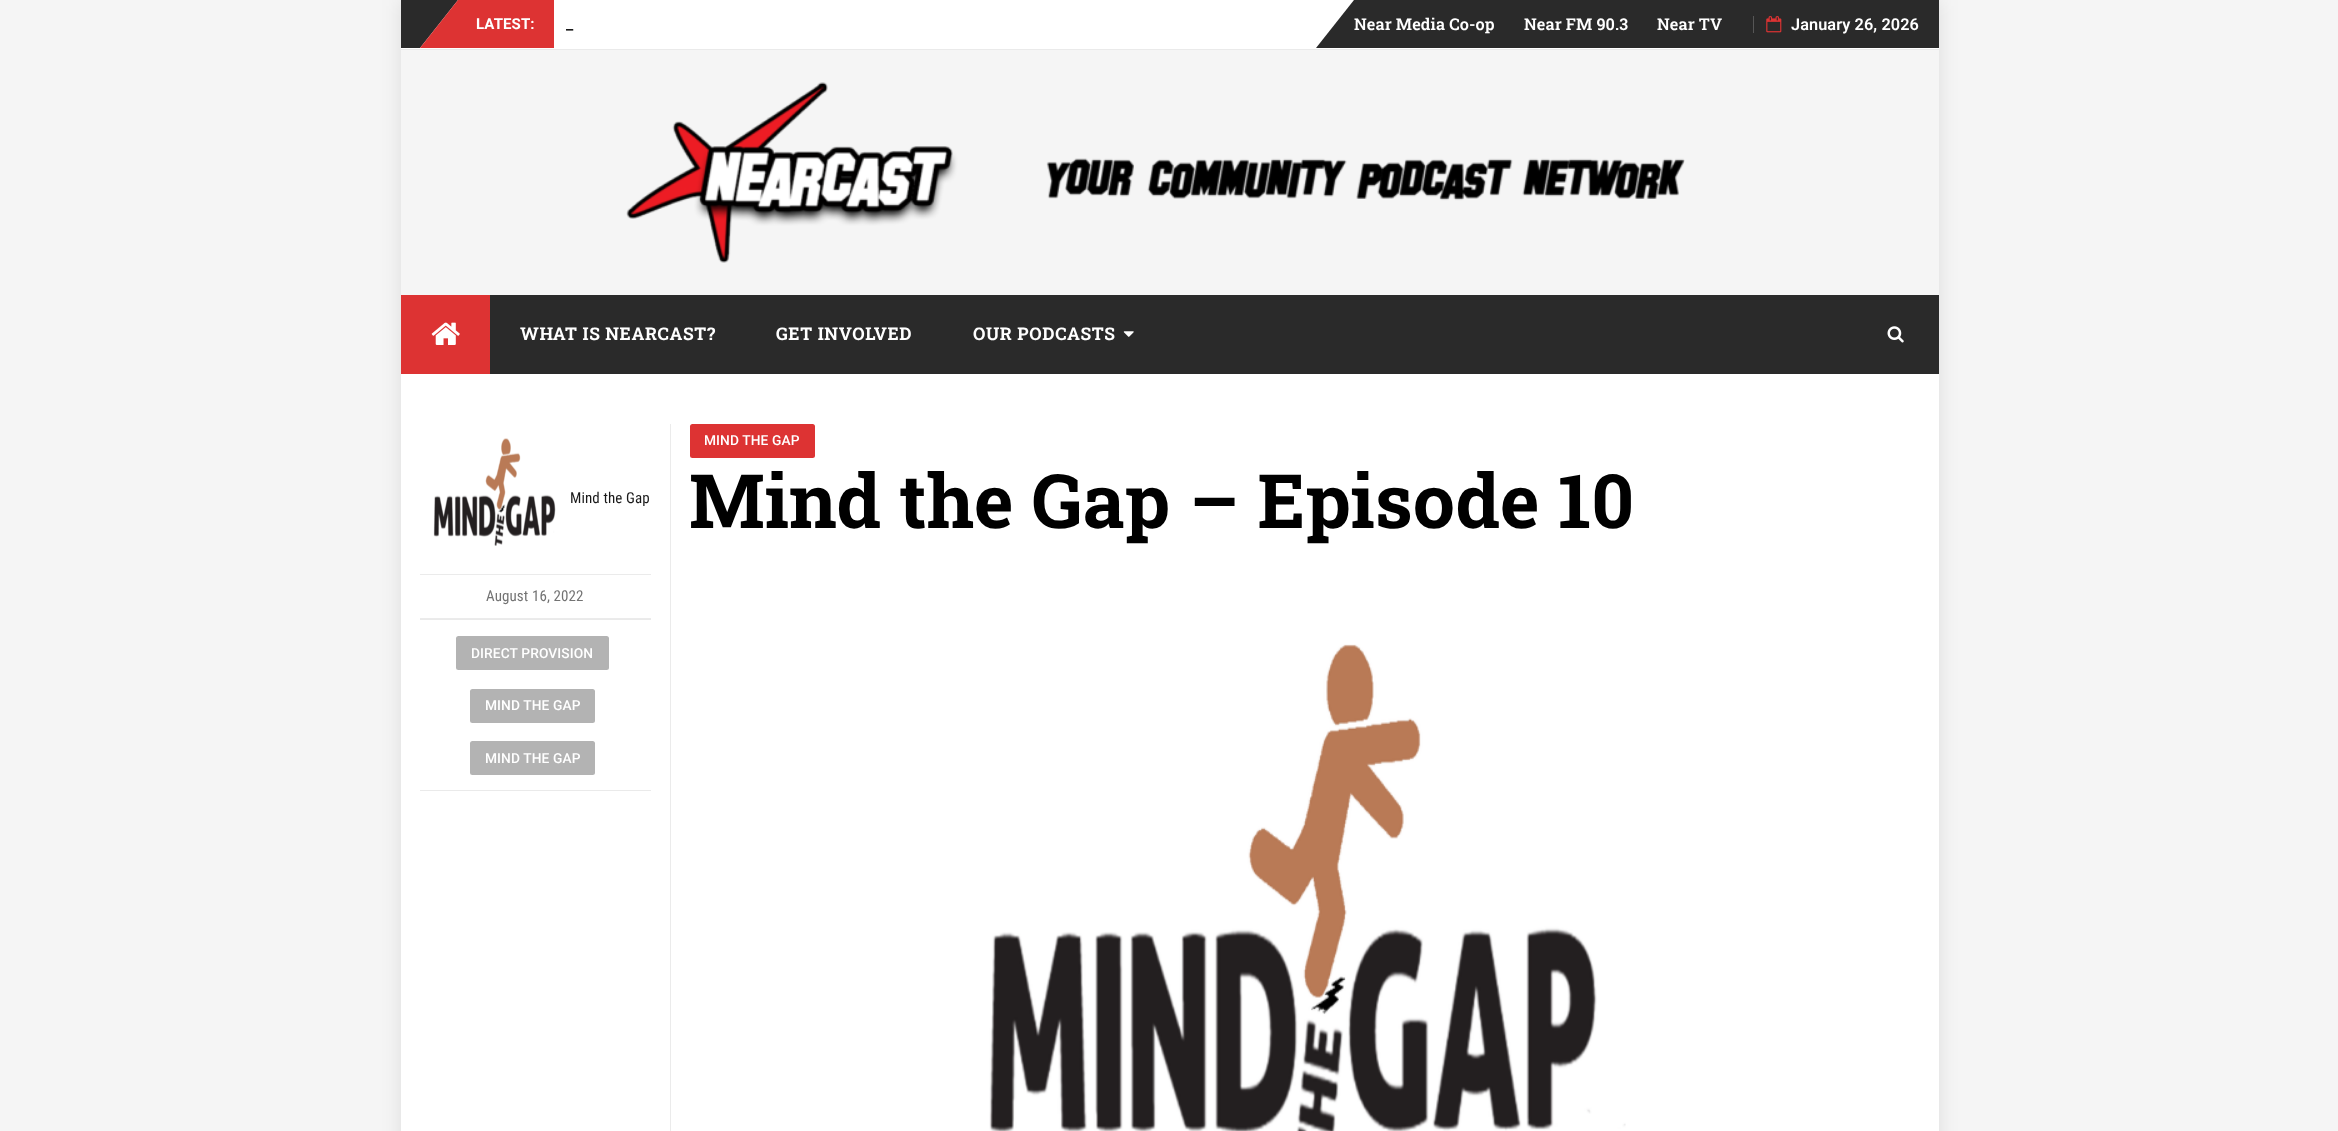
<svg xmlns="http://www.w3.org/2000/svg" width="2338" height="1131">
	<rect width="100%" height="100%" fill="#F5F5F5" />
	<rect x="401" y="0" width="1538" height="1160" fill="#000000" fill-opacity="0.1" filter="blur(9.5px)" />
	<rect x="401" y="0" width="1538" height="1131" fill="#FFFFFF" />
	<rect x="401" y="49" width="1538" height="1" fill="#EAEAEA" />
	<path d="M401 0H458L420 48H401Z" fill="#2A2A2A" />
	<path d="M554 48H420L458 0H554Z" fill="#DD3333" />
	<text x="476" y="29" font-family="Roboto" font-size="15" font-weight="700" letter-spacing="0.1" fill="#FFFFFF">LATEST:</text>
	<text x="566" y="29" font-family="Roboto" font-size="16.25" font-weight="600" letter-spacing="0.1" fill="#191919">_</text>
	<path d="M1939 48H1316L1354 0H1939Z" fill="#2A2A2A" />
	<g font-family="Roboto Slab" font-size="16.25" font-weight="600" letter-spacing="0.1" fill="#FFFFFF">
		<text x="1354" y="30">Near Media Co-op</text>
		<text x="1524" y="30">Near FM 90.3</text>
		<text x="1657" y="30">Near TV</text>
	</g>
	<rect x="1753" y="16" width="1" height="17" fill="#565656" />
	<image x="1766" y="16" width="16" height="17" href="assets/img1.png" />
	<text x="1791" y="30" font-family="Roboto" font-size="16.25" font-weight="600" letter-spacing="0.1" fill="#FFFFFF">January 26, 2026</text>
	<rect x="401" y="50" width="1538" height="245" fill="#F5F5F5" />
	<image x="626" y="82" width="1059" height="181" href="assets/img2.png" />
	<rect x="490" y="295" width="1449" height="79" fill="#2A2A2A" />
	<rect x="401" y="295" width="89" height="79" fill="#DD3333" />
	<image x="431" y="322" width="29" height="23" href="assets/img3.png" />
	<g font-family="Roboto Slab" font-size="17.5" font-weight="700" letter-spacing="0.6" fill="#FFFFFF">
		<text x="520" y="340">WHAT IS NEARCAST?</text>
		<text x="776" y="340">GET INVOLVED</text>
		<text x="973" y="340">OUR PODCASTS</text>
	</g>
	<image x="1123" y="331" width="11" height="6" href="assets/img4.png" />
	<image x="1887" y="326" width="17" height="17" href="assets/img5.png" />
	<rect x="420" y="618" width="231" height="1" fill="#EBEBEB" />
	<image x="433" y="438" width="123" height="108" href="assets/img6.png" />
	<text x="570" y="503" font-family="Roboto Condensed" font-size="15" letter-spacing="0.1" fill="#191919">Mind the Gap</text>
	<rect x="420" y="574" width="231" height="1" fill="#EBEBEB" />
	<text x="486" y="601" font-family="Roboto Condensed" font-size="15" letter-spacing="0.1" fill="#737373">August 16, 2022</text>
	<rect x="420" y="619" width="231" height="1" fill="#EAEAEA" />
	<rect x="420" y="790" width="231" height="1" fill="#EAEAEA" />
	<rect x="456" y="636" width="153" height="34" rx="2.5" fill="#B3B3B3" />
	<text x="471" y="658" font-family="Roboto" font-size="13.75" font-weight="500" letter-spacing="0.1" fill="#FFFFFF">DIRECT PROVISION</text>
	<rect x="470" y="689" width="125" height="34" rx="2.5" fill="#B3B3B3" />
	<text x="485" y="710" font-family="Roboto" font-size="13.75" font-weight="500" letter-spacing="0.1" fill="#FFFFFF">MIND THE GAP</text>
	<rect x="470" y="741" width="125" height="34" rx="2.5" fill="#B3B3B3" />
	<text x="485" y="763" font-family="Roboto" font-size="13.75" font-weight="500" letter-spacing="0.1" fill="#FFFFFF">MIND THE GAP</text>
	<rect x="670" y="424" width="1" height="707" fill="#EBEBEB" />
	<rect x="690" y="424" width="125" height="34" rx="2.5" fill="#DD3333" />
	<text x="704" y="445" font-family="Roboto" font-size="13.75" font-weight="500" letter-spacing="0.1" fill="#FFFFFF">MIND THE GAP</text>
	<text x="689" y="528" font-family="Roboto Slab" font-size="75" font-weight="700" letter-spacing="0.1" fill="#000000">Mind the Gap – Episode 10</text>
	<image x="989" y="644" width="637" height="487" href="assets/img7.png" />
</svg>
